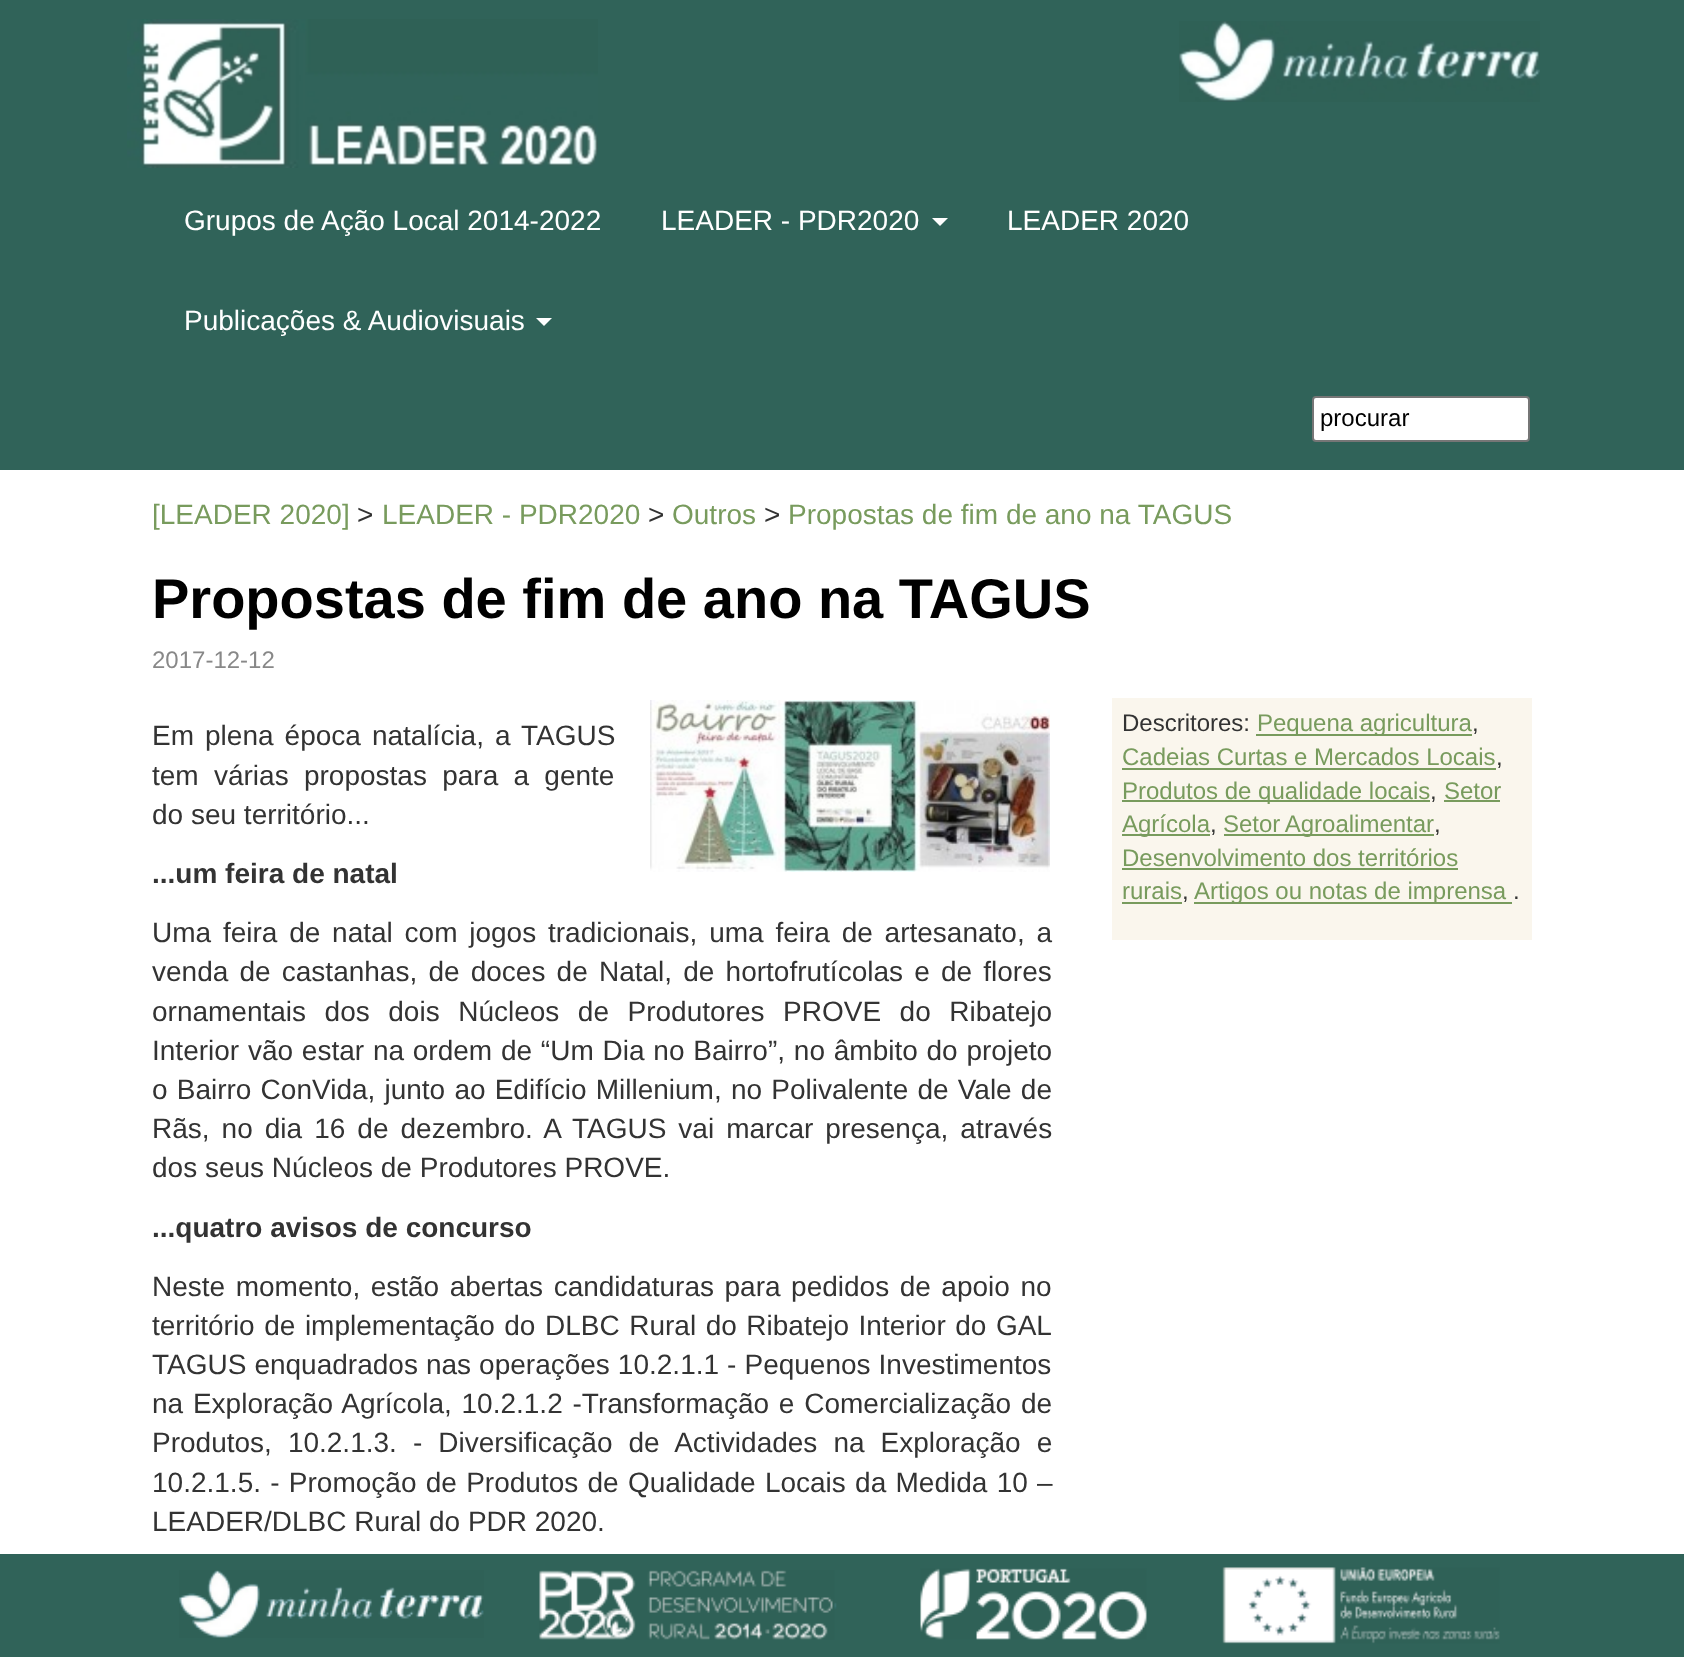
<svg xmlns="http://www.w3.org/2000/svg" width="1684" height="1657">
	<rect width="100%" height="100%" fill="#FFFFFF" />
	<rect x="0" y="0" width="1684" height="470" fill="#306359" />
	<image x="127" y="19" width="471" height="149" href="assets/img1.png" />
	<image x="1179" y="21" width="361" height="81" href="assets/img2.png" />
	<g font-family="Liberation Sans" font-size="28" fill="#FFFFFF">
		<text x="184" y="230">Grupos de Ação Local 2014-2022</text>
		<text x="661" y="230">LEADER - PDR2020</text>
	</g>
	<path d="M932 218H948L940 226Z" fill="#FFFFFF" />
	<g font-family="Liberation Sans" font-size="28" fill="#FFFFFF">
		<text x="1007" y="230">LEADER 2020</text>
		<text x="184" y="330">Publicações &amp; Audiovisuais</text>
	</g>
	<path d="M536 318H552L544 326Z" fill="#FFFFFF" />
	<rect x="1313" y="397" width="216" height="44" rx="3" fill="#FFFFFF" stroke="#767676" stroke-width="2" />
	<text x="1320" y="426" font-family="Liberation Sans" font-size="24" fill="#000000">procurar</text>
	<text x="152" y="524" font-family="Liberation Sans" font-size="28" fill="#789B5D">[LEADER 2020]</text>
	<text x="357" y="524" font-family="Liberation Sans" font-size="28" fill="#333333">&gt;</text>
	<text x="382" y="524" font-family="Liberation Sans" font-size="28" fill="#789B5D">LEADER - PDR2020</text>
	<text x="648" y="524" font-family="Liberation Sans" font-size="28" fill="#333333">&gt;</text>
	<text x="672" y="524" font-family="Liberation Sans" font-size="28" fill="#789B5D">Outros</text>
	<text x="764" y="524" font-family="Liberation Sans" font-size="28" fill="#333333">&gt;</text>
	<text x="788" y="524" font-family="Liberation Sans" font-size="28" fill="#789B5D">Propostas de fim de ano na TAGUS</text>
	<text x="152" y="618" font-family="Liberation Sans" font-size="56" font-weight="700" fill="#000000">Propostas de fim de ano na TAGUS</text>
	<text x="152" y="668" font-family="Liberation Sans" font-size="24" fill="#888888">2017-12-12</text>
	<g font-family="Liberation Sans" font-size="28" fill="#333333">
		<text x="152" y="745" word-spacing="3.25">Em plena época natalícia, a TAGUS</text>
		<text x="152" y="785" word-spacing="7.5">tem várias propostas para a gente</text>
		<text x="152" y="824">do seu território...</text>
	</g>
	<image x="650" y="700" width="400" height="172" href="assets/img3.png" />
	<text x="152" y="883" font-family="Liberation Sans" font-size="28" font-weight="700" fill="#333333">...um feira de natal</text>
	<g font-family="Liberation Sans" font-size="28" fill="#333333">
		<text x="152" y="942" word-spacing="4">Uma feira de natal com jogos tradicionais, uma feira de artesanato, a</text>
		<text x="152" y="981" word-spacing="3.4">venda de castanhas, de doces de Natal, de hortofrutícolas e de flores</text>
		<text x="152" y="1021" word-spacing="10.75">ornamentais dos dois Núcleos de Produtores PROVE do Ribatejo</text>
		<text x="152" y="1060" word-spacing="1">Interior vão estar na ordem de “Um Dia no Bairro”, no âmbito do projeto</text>
		<text x="152" y="1099" word-spacing="1.4">o Bairro ConVida, junto ao Edifício Millenium, no Polivalente de Vale de</text>
		<text x="152" y="1138" word-spacing="4.25">Rãs, no dia 16 de dezembro. A TAGUS vai marcar presença, através</text>
		<text x="152" y="1177">dos seus Núcleos de Produtores PROVE.</text>
	</g>
	<text x="152" y="1237" font-family="Liberation Sans" font-size="28" font-weight="700" fill="#333333">...quatro avisos de concurso</text>
	<g font-family="Liberation Sans" font-size="28" fill="#333333">
		<text x="152" y="1296" word-spacing="2.75">Neste momento, estão abertas candidaturas para pedidos de apoio no</text>
		<text x="152" y="1335" word-spacing="1.75">território de implementação do DLBC Rural do Ribatejo Interior do GAL</text>
		<text x="152" y="1374" word-spacing="0.25">TAGUS enquadrados nas operações 10.2.1.1 - Pequenos Investimentos</text>
		<text x="152" y="1413" word-spacing="2">na Exploração Agrícola, 10.2.1.2 -Transformação e Comercialização de</text>
		<text x="152" y="1452" word-spacing="8.25">Produtos, 10.2.1.3. - Diversificação de Actividades na Exploração e</text>
		<text x="152" y="1492" word-spacing="1.5">10.2.1.5. - Promoção de Produtos de Qualidade Locais da Medida 10 –</text>
		<text x="152" y="1531">LEADER/DLBC Rural do PDR 2020.</text>
	</g>
	<rect x="1112" y="698" width="420" height="242" fill="#FAF6ED" />
	<text x="1122" y="731" font-family="Liberation Sans" font-size="24" fill="#333333">Descritores:</text>
	<rect x="1256" y="734" width="216" height="2" fill="#789B5D" />
	<text x="1257" y="731" font-family="Liberation Sans" font-size="24" fill="#789B5D">Pequena agricultura</text>
	<text x="1472" y="731" font-family="Liberation Sans" font-size="24" fill="#333333">,</text>
	<text x="1122" y="765" font-family="Liberation Sans" font-size="24" fill="#789B5D">Cadeias Curtas e Mercados Locais</text>
	<rect x="1122" y="768" width="374" height="2" fill="#789B5D" />
	<text x="1496" y="765" font-family="Liberation Sans" font-size="24" fill="#333333">,</text>
	<rect x="1122" y="800" width="308" height="2" fill="#789B5D" />
	<text x="1122" y="799" font-family="Liberation Sans" font-size="24" fill="#789B5D">Produtos de qualidade locais</text>
	<text x="1430" y="799" font-family="Liberation Sans" font-size="24" fill="#333333">,</text>
	<text x="1444" y="799" font-family="Liberation Sans" font-size="24" fill="#789B5D">Setor</text>
	<rect x="1444" y="800" width="56" height="2" fill="#789B5D" />
	<rect x="1122" y="834" width="88" height="2" fill="#789B5D" />
	<text x="1122" y="832" font-family="Liberation Sans" font-size="24" fill="#789B5D">Agrícola</text>
	<text x="1210" y="832" font-family="Liberation Sans" font-size="24" fill="#333333">,</text>
	<rect x="1224" y="834" width="210" height="2" fill="#789B5D" />
	<text x="1223" y="832" word-spacing="-1" font-family="Liberation Sans" font-size="24" fill="#789B5D">Setor Agroalimentar</text>
	<text x="1434" y="832" font-family="Liberation Sans" font-size="24" fill="#333333">,</text>
	<text x="1122" y="866" font-family="Liberation Sans" font-size="24" fill="#789B5D">Desenvolvimento dos territórios</text>
	<rect x="1122" y="868" width="336" height="2" fill="#789B5D" />
	<text x="1122" y="899" font-family="Liberation Sans" font-size="24" fill="#789B5D">rurais</text>
	<rect x="1122" y="902" width="60" height="2" fill="#789B5D" />
	<text x="1182" y="899" font-family="Liberation Sans" font-size="24" fill="#333333">,</text>
	<rect x="1194" y="902" width="318" height="2" fill="#789B5D" />
	<text x="1194" y="899" font-family="Liberation Sans" font-size="24" fill="#789B5D">Artigos ou notas de imprensa</text>
	<text x="1513" y="899" font-family="Liberation Sans" font-size="24" fill="#333333">.</text>
	<rect x="0" y="1554" width="1684" height="103" fill="#306359" />
	<image x="179" y="1570" width="305" height="68" href="assets/img4.png" />
	<image x="539" y="1570" width="298" height="70" href="assets/img5.png" />
	<image x="920" y="1568" width="227" height="72" href="assets/img6.png" />
	<image x="1222" y="1567" width="278" height="77" href="assets/img7.png" />
</svg>
